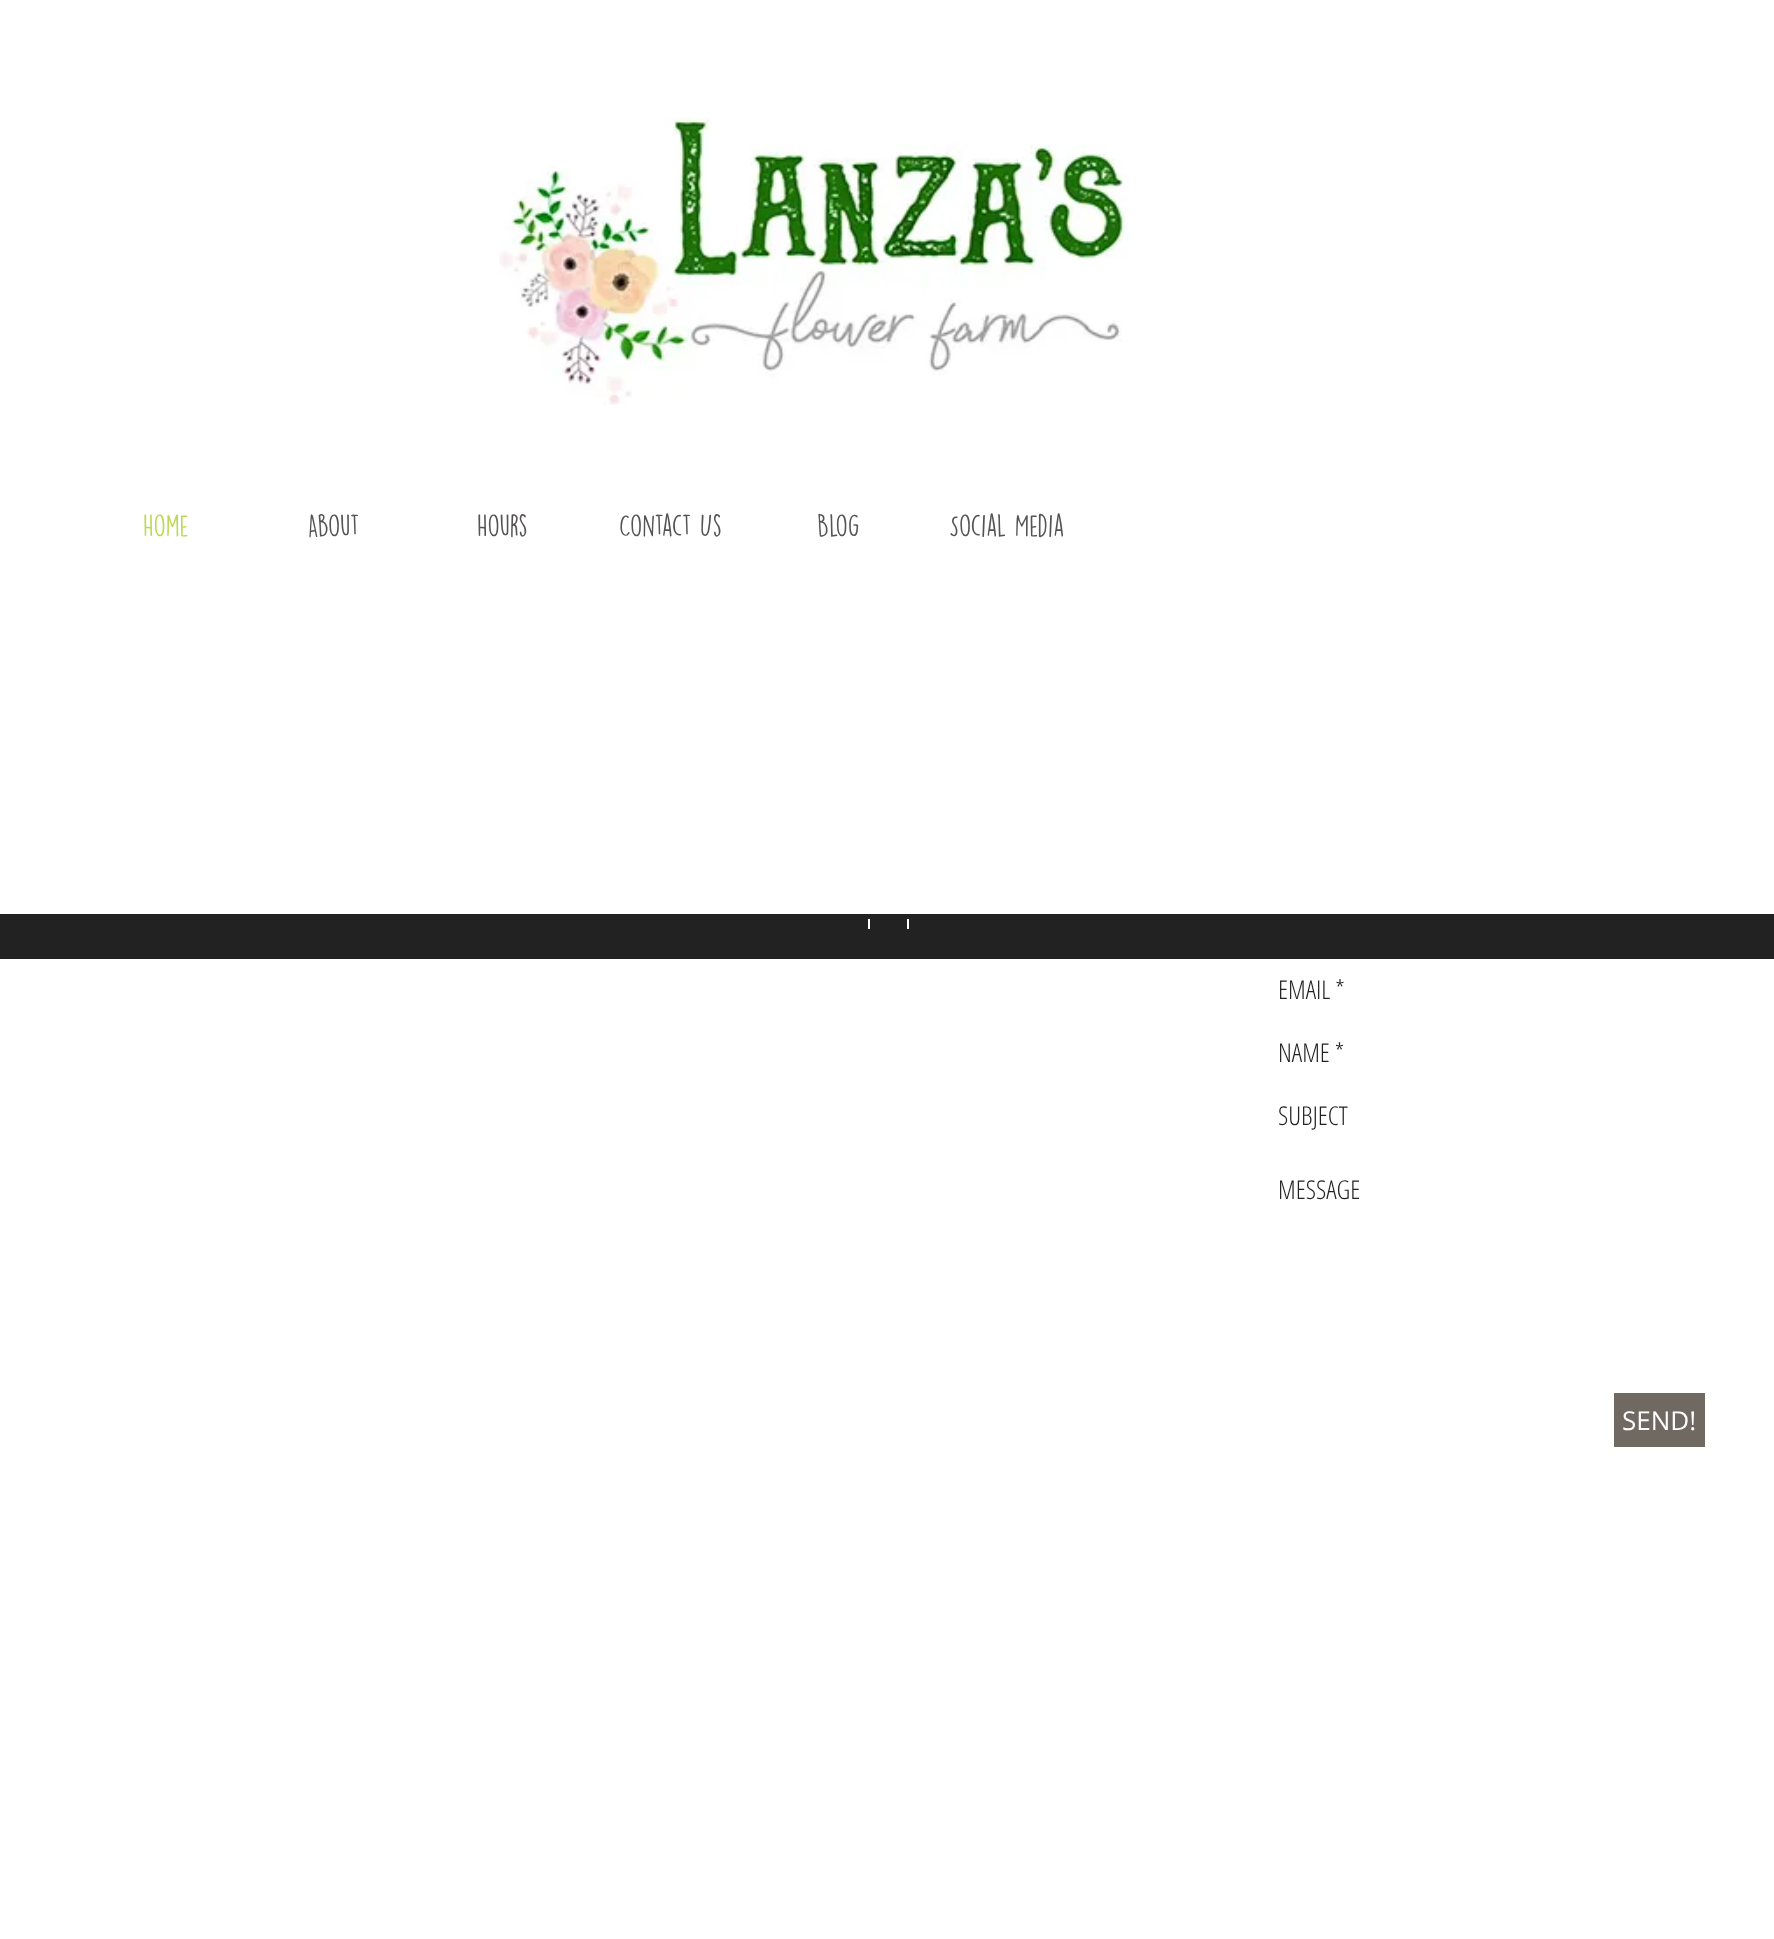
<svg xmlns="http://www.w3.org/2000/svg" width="1774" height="1939">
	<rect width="100%" height="100%" fill="#FFFFFF" />
	<image x="499" y="117" width="630" height="288" href="assets/img1.png" />
	<text x="143" y="537" font-family="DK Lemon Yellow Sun" font-size="28" fill="#BADA55">Home</text>
	<g font-family="DK Lemon Yellow Sun" font-size="28" fill="#555353">
		<text x="308" y="537">About</text>
		<text x="477" y="537">Hours</text>
		<text x="619" y="537">Contact Us</text>
		<text x="817" y="537">Blog</text>
		<text x="949" y="537">Social Media</text>
	</g>
	<rect x="0" y="914" width="1774" height="45" fill="#222222" />
	<rect x="868" y="919" width="2" height="10" fill="#FFFFFF" />
	<rect x="907" y="919" width="2" height="10" fill="#FFFFFF" />
	<g font-family="Open Sans Condensed" font-size="26" font-weight="300" fill="#222222">
		<text x="1278" y="999">EMAIL *</text>
		<text x="1278" y="1062">NAME *</text>
		<text x="1278" y="1125">SUBJECT</text>
		<text x="1278" y="1199">MESSAGE</text>
	</g>
	<rect x="1614" y="1393" width="91" height="54" fill="#706962" />
	<text x="1622" y="1430" font-family="Open Sans" font-size="26" fill="#FFFFFF">SEND!</text>
</svg>
